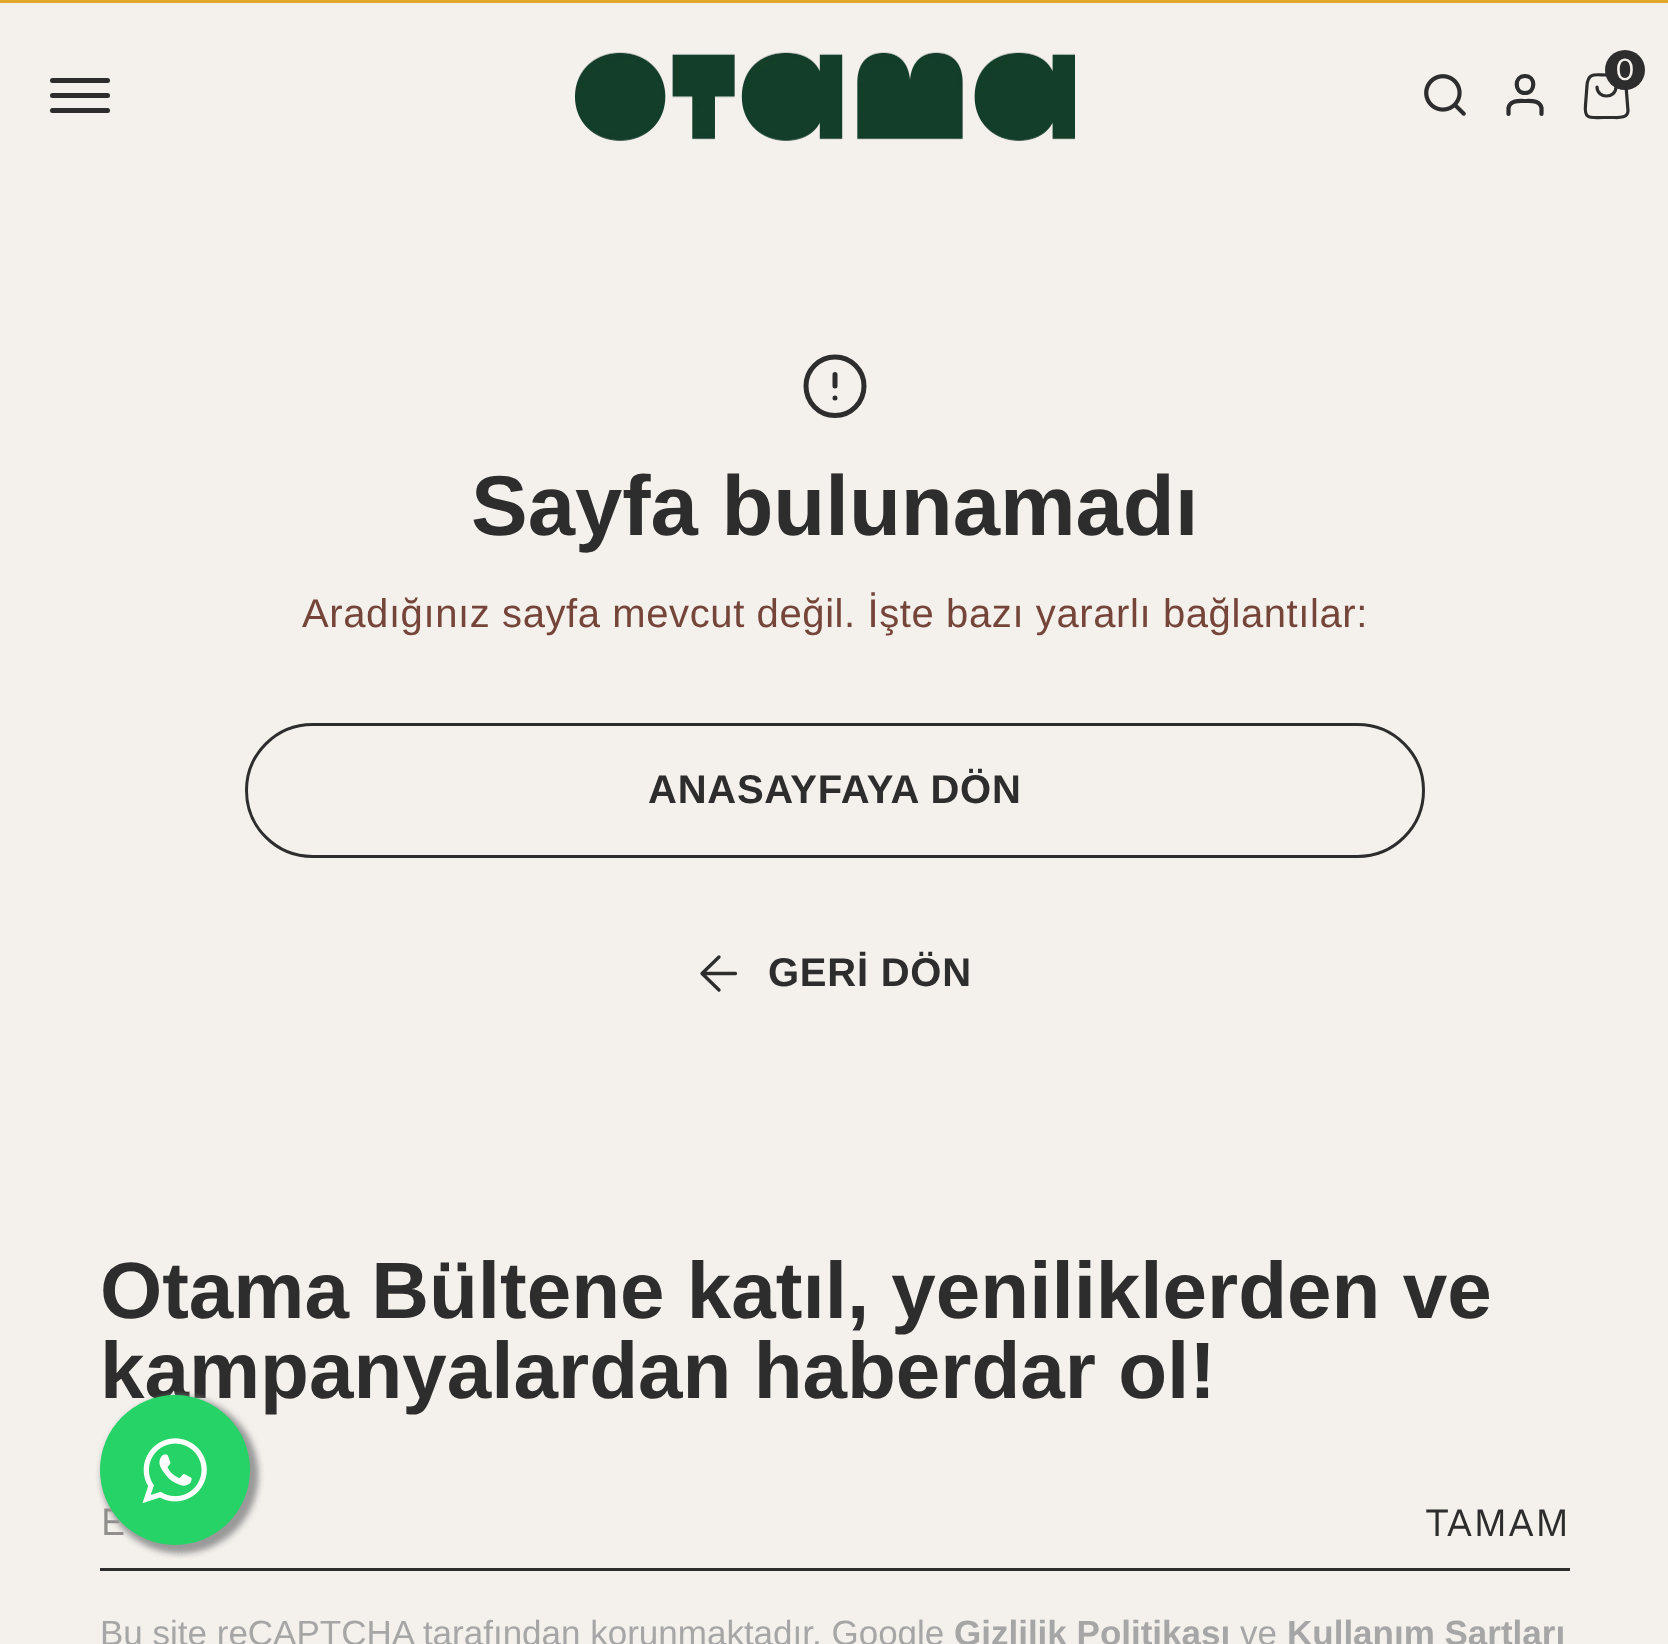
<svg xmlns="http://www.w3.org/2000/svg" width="1668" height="1644">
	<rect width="100%" height="100%" fill="#F4F1ED" />
	<rect x="0" y="0" width="1668" height="3" fill="#E0A728" />
	<image x="575" y="52" width="500" height="89" href="assets/img1.png" />
	<path d="M1616 87C1616 99 1597 99 1597 87M1587 85.5L1585.5 105C1584 120 1590.5 117.5 1603.5 117.5H1613.5C1618.5 117.5 1627.5 118.5 1628 111L1625.5 79.5C1623.5 73 1611.5 75 1606.5 75C1595 75 1588 72 1587 85.5Z" fill="none" stroke="#2D2D2D" stroke-width="3.2" stroke-linecap="round" stroke-linejoin="round" />
	<circle cx="1625" cy="70" r="20" fill="#2D2D2D" />
	<text x="1615" y="80" font-family="Work Sans" font-size="32" fill="#F4F1ED">0</text>
	<image x="1424" y="74" width="42" height="42" href="assets/img2.png" />
	<path d="M1541.5 114V108C1540 100 1531 101 1525 101C1519 101 1510 100 1508.5 108V114M1525 93C1536 93 1536 76 1525 76C1514 76 1514 93 1525 93Z" fill="none" stroke="#2D2D2D" stroke-width="4.2" stroke-linecap="round" stroke-linejoin="round" />
	<rect x="50" y="78" width="60" height="5" rx="2.5" fill="#2D2D2D" />
	<rect x="50" y="93" width="60" height="5" rx="2.5" fill="#2D2D2D" />
	<rect x="50" y="108" width="60" height="5" rx="2.5" fill="#2D2D2D" />
	<path d="M835 374.5V386M835 398H835M864 386C864 402.5 851 415.5 835 415.5C819 415.5 806 402.5 806 386C806 370 819 357 835 357C851 357 864 370 864 386Z" fill="none" stroke="#2D2D2D" stroke-width="5" stroke-linecap="round" stroke-linejoin="round" />
	<text x="471" y="535" font-family="Liberation Sans" font-size="85" font-weight="700" fill="#2D2D2D">Sayfa bulunamadı</text>
	<text x="302" y="627" font-family="Liberation Sans" font-size="40" letter-spacing="0.6" fill="#744538">Aradığınız sayfa mevcut değil. İşte bazı yararlı bağlantılar:</text>
	<rect x="246.5" y="724.5" width="1177" height="132" rx="66" fill="none" stroke="#2D2D2D" stroke-width="3" />
	<text x="648" y="803" font-family="Liberation Sans" font-size="40" font-weight="700" letter-spacing="0.75" fill="#2D2D2D">ANASAYFAYA DÖN</text>
	<path d="M735.5 973.5H702M702 973.5L719 990M702 973.5L719 957" fill="none" stroke="#2D2D2D" stroke-width="3.3" stroke-linecap="round" stroke-linejoin="round" />
	<text x="768" y="986" font-family="Liberation Sans" font-size="40" font-weight="700" letter-spacing="0.75" fill="#2D2D2D">GERİ DÖN</text>
	<g font-family="Liberation Sans" font-size="80" font-weight="700" fill="#2D2D2D">
		<text x="100" y="1318">Otama Bültene katıl, yeniliklerden ve</text>
		<text x="100" y="1398">kampanyalardan haberdar ol!</text>
	</g>
	<rect x="100" y="1568" width="1470" height="3" fill="#2D2D2D" />
	<text x="100" y="1535" font-family="Work Sans" font-size="40" letter-spacing="0.6" fill="#918F8D">E</text>
	<text x="1425" y="1536" font-family="Work Sans" font-size="40" letter-spacing="0.6" fill="#2D2D2D">TAMAM</text>
	<text x="100" y="1645" font-family="Liberation Sans" font-size="35" fill="#A6A6A6">Bu site reCAPTCHA tarafından korunmaktadır, Google</text>
	<text x="954" y="1645" font-family="Liberation Sans" font-size="35" font-weight="700" fill="#A6A6A6">Gizlilik Politikası</text>
	<text x="1240" y="1645" font-family="Liberation Sans" font-size="35" fill="#A6A6A6">ve</text>
	<text x="1287" y="1645" font-family="Liberation Sans" font-size="35" font-weight="700" fill="#A6A6A6">Kullanım Şartları</text>
	<rect x="105" y="1400" width="150" height="150" rx="75" fill="#999999" filter="blur(4px)" />
	<rect x="105" y="1400" width="150" height="150" rx="75" fill="#999999" filter="blur(4px)" />
	<rect x="105" y="1400" width="150" height="150" rx="75" fill="#999999" filter="blur(4px)" />
	<circle cx="175" cy="1470" r="75" fill="#25D366" />
	<image x="142" y="1438" width="65" height="65" href="assets/img3.png" />
</svg>
